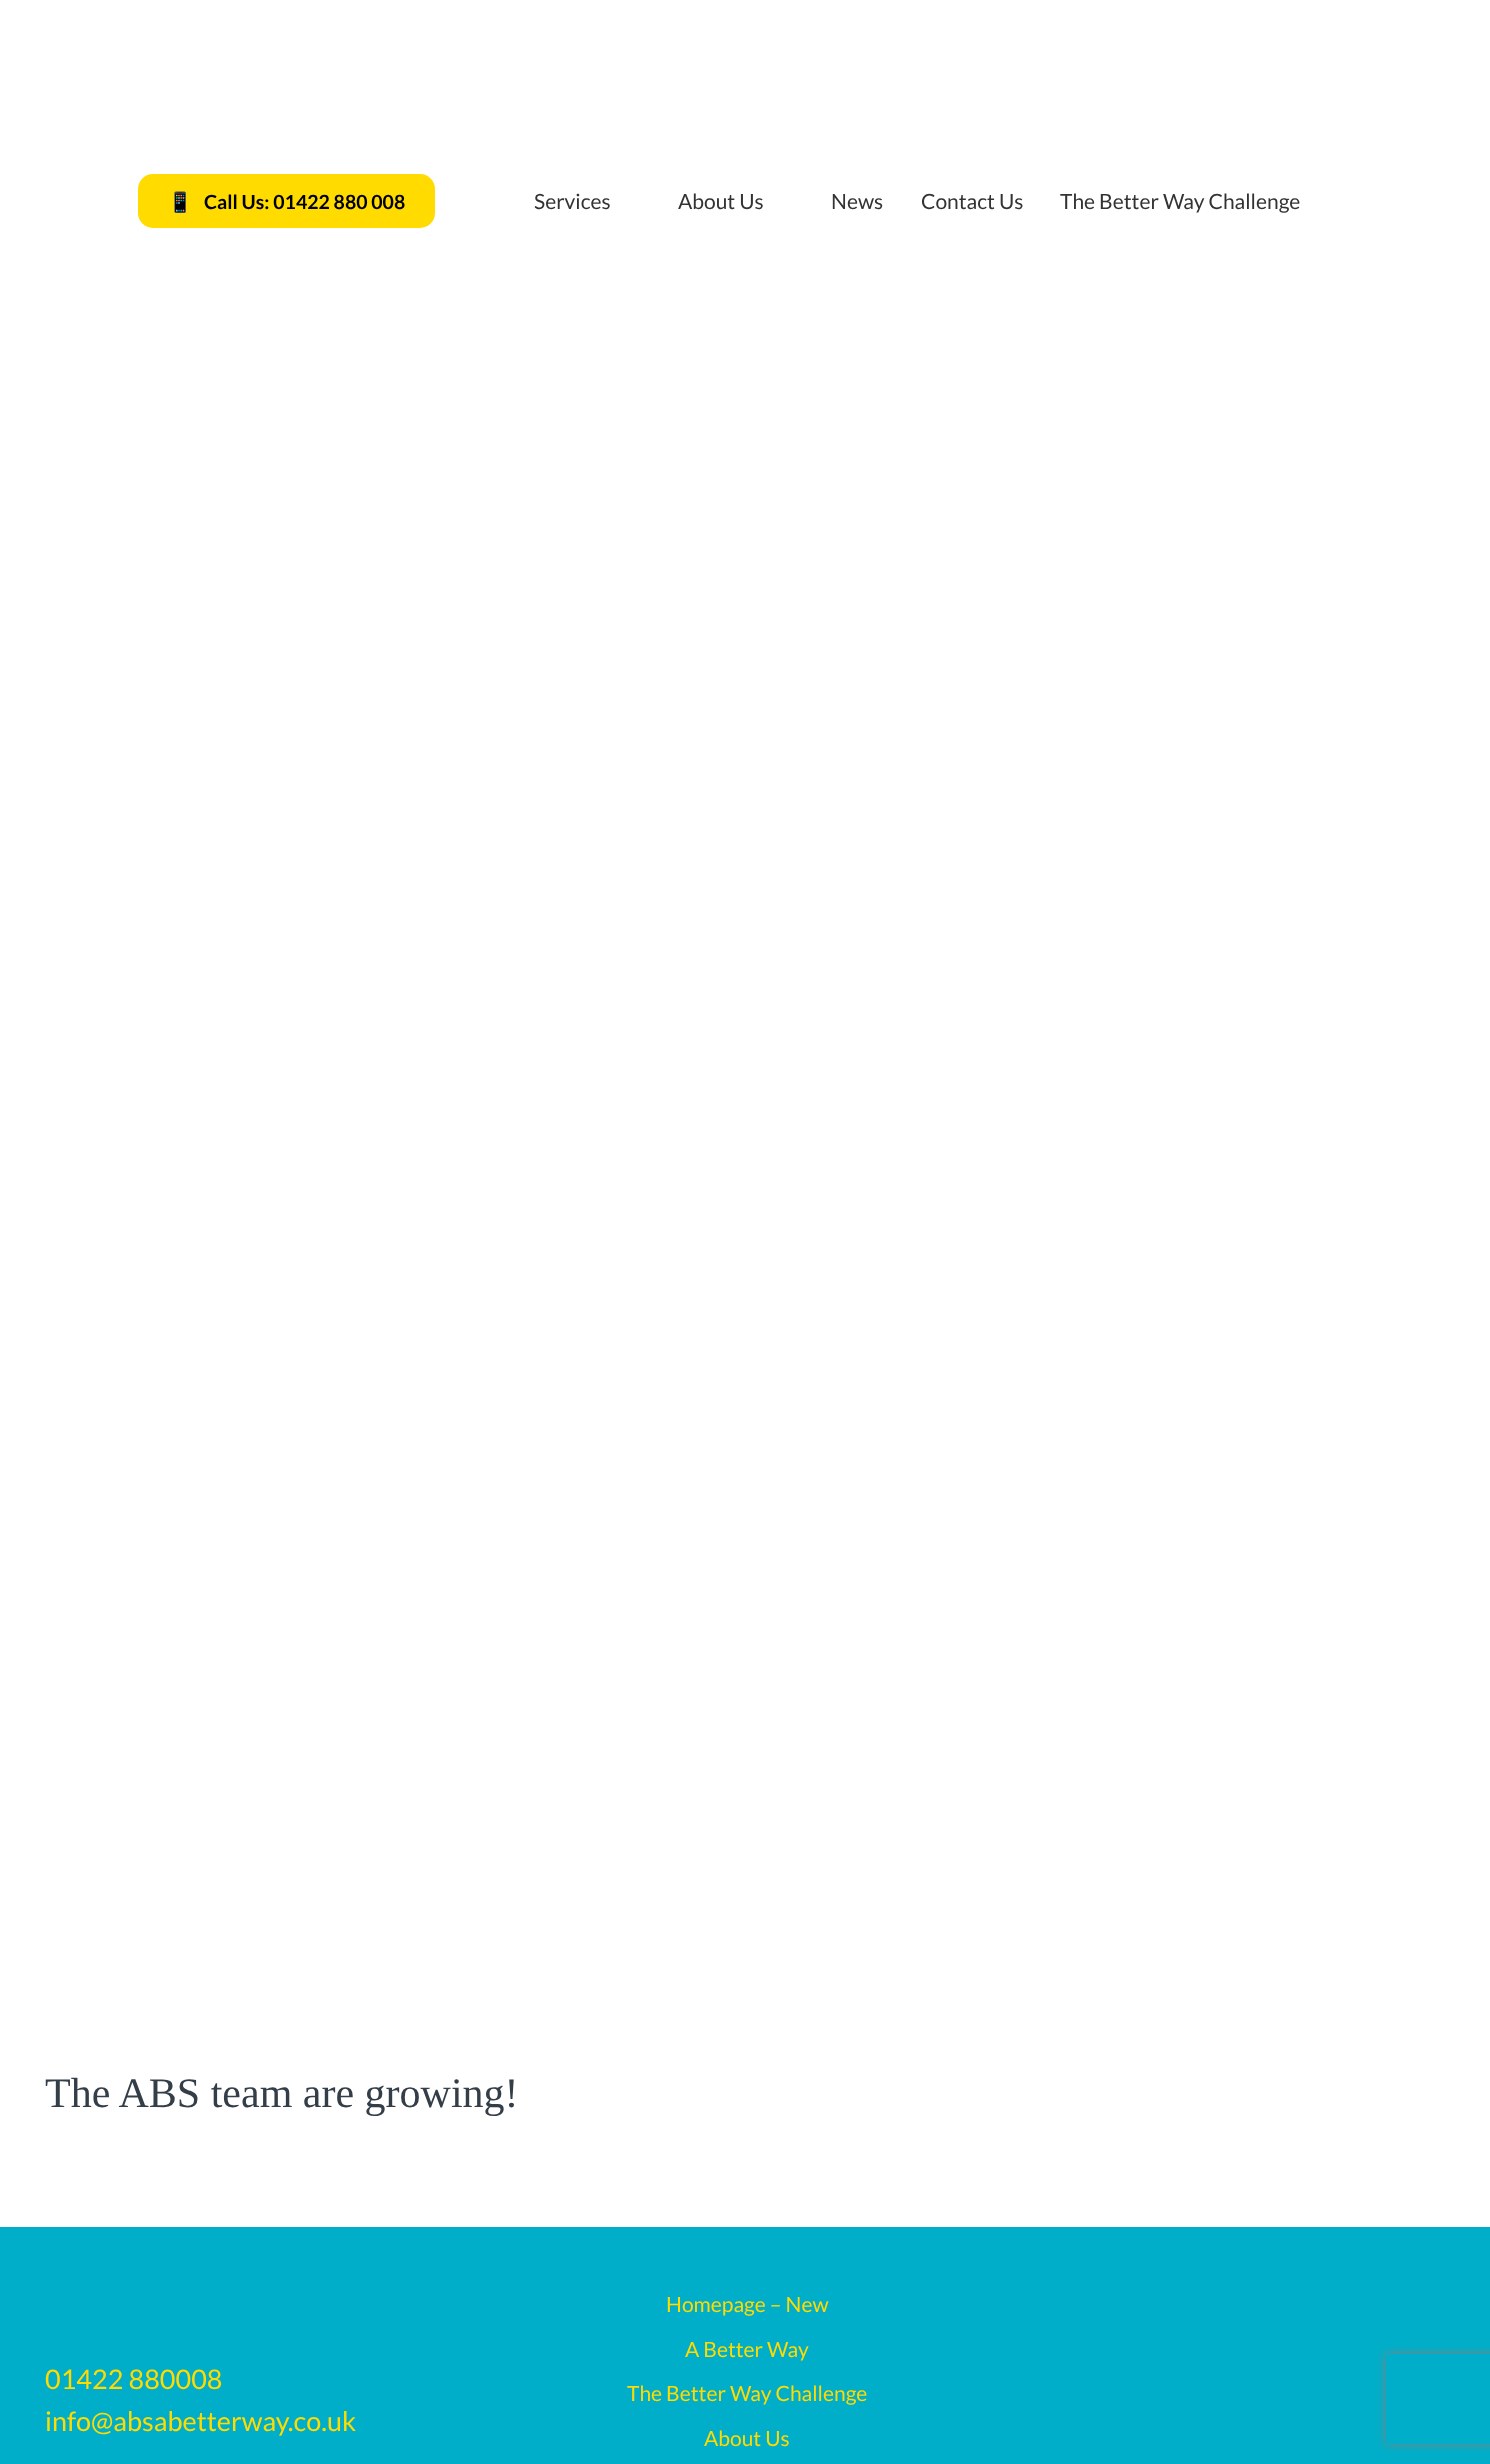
<svg xmlns="http://www.w3.org/2000/svg" width="1490" height="2464">
	<defs>
		<clipPath id="clip1"><path d="M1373 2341H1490V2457H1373ZM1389 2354H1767C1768.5 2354 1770 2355.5 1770 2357V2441C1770 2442.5 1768.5 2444 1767 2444H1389C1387.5 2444 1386 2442.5 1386 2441V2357C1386 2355.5 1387.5 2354 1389 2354Z" clip-rule="evenodd" /></clipPath>
	</defs>
	<rect width="100%" height="100%" fill="#FFFFFF" />
	<rect x="138" y="174" width="297" height="54" rx="15" fill="#FFDB00" />
	<text x="168" y="209" font-family="Noto Color Emoji" font-size="19.5" font-weight="700" fill="#000000">📱</text>
	<text x="204" y="209" font-family="Lato" font-size="19.5" font-weight="700" fill="#000000">Call Us: 01422 880 008</text>
	<g font-family="Lato" font-size="21" fill="#333333">
		<text x="534" y="209">Services</text>
		<text x="678" y="209">About Us</text>
		<text x="831" y="209">News</text>
		<text x="921" y="209">Contact Us</text>
		<text x="1060" y="209">The Better Way Challenge</text>
	</g>
	<text x="45" y="2107" font-family="Liberation Serif" font-size="42" fill="#343E48">The ABS team are growing!</text>
	<rect x="0" y="2227" width="1490" height="237" fill="#00AEC9" />
	<g font-family="Lato" font-size="27" fill="#FFDB00">
		<text x="45" y="2389">01422 880008</text>
		<text x="45" y="2431">info@absabetterway.co.uk</text>
	</g>
	<g font-family="Lato" font-size="21" fill="#FFDB00">
		<text x="666" y="2312">Homepage – New</text>
		<text x="685" y="2357">A Better Way</text>
		<text x="627" y="2401">The Better Way Challenge</text>
		<text x="704" y="2446">About Us</text>
	</g>
	<g clip-path="url(#clip1)">
		<rect x="1386" y="2354" width="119" height="90" rx="3" fill="#808080" filter="blur(4px)" />
	</g>
</svg>
